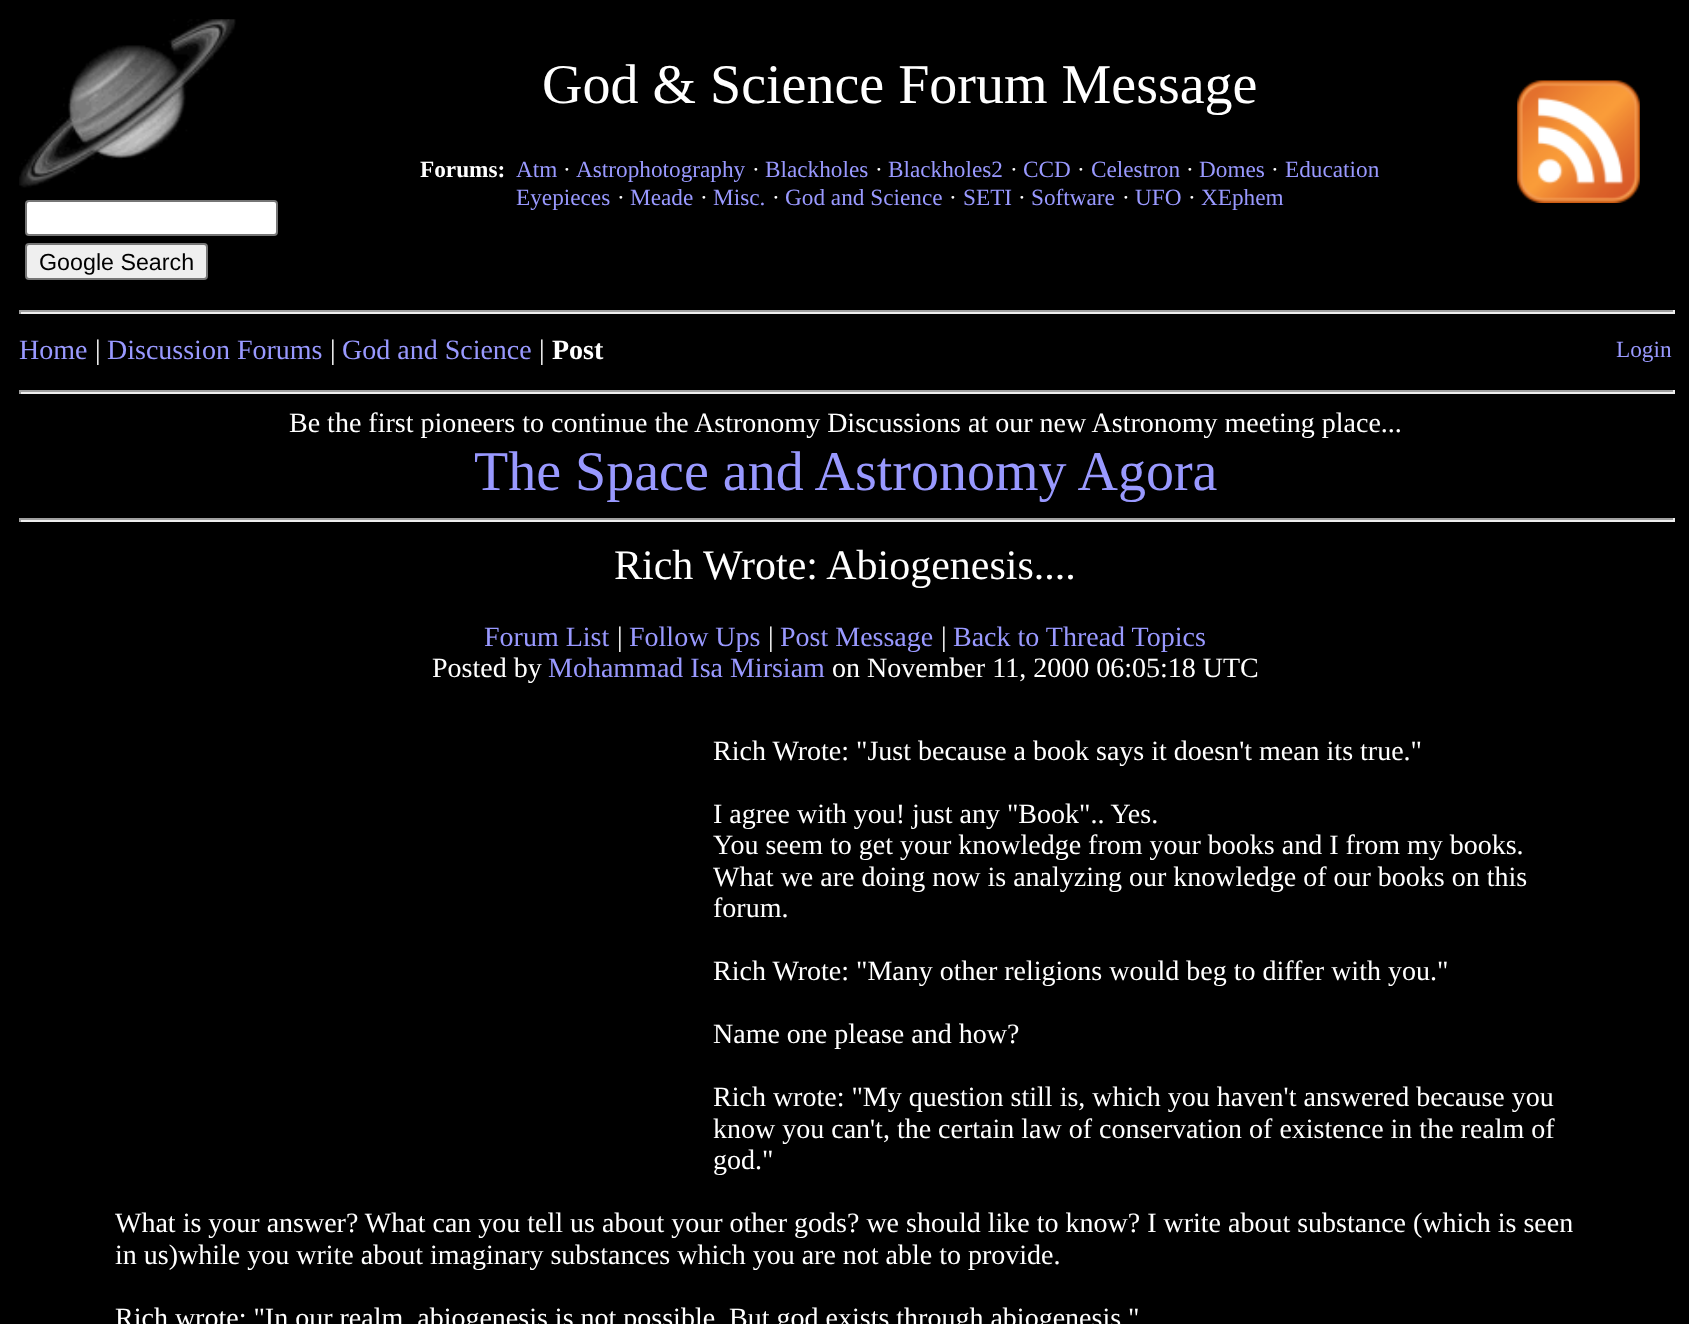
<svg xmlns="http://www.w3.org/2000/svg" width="1689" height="1324">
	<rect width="100%" height="100%" fill="#000000" />
	<text x="542" y="103" font-family="Liberation Serif" font-size="56" fill="#FFFFFF">God &amp; Science Forum Message</text>
	<text x="420" y="177" font-family="Liberation Serif" font-size="23.25" font-weight="700" fill="#FFFFFF">Forums:</text>
	<text x="516" y="177" font-family="Liberation Serif" font-size="23.25" fill="#9999FF">Atm</text>
	<text x="563" y="177" font-family="Liberation Serif" font-size="23.25" fill="#FFFFFF">·</text>
	<text x="576" y="177" font-family="Liberation Serif" font-size="23.25" fill="#9999FF">Astrophotography</text>
	<text x="752" y="177" font-family="Liberation Serif" font-size="23.25" fill="#FFFFFF">·</text>
	<text x="765" y="177" font-family="Liberation Serif" font-size="23.25" fill="#9999FF">Blackholes</text>
	<text x="875" y="177" font-family="Liberation Serif" font-size="23.25" fill="#FFFFFF">·</text>
	<text x="888" y="177" font-family="Liberation Serif" font-size="23.25" fill="#9999FF">Blackholes2</text>
	<text x="1010" y="177" font-family="Liberation Serif" font-size="23.25" fill="#FFFFFF">·</text>
	<text x="1023" y="177" font-family="Liberation Serif" font-size="23.25" fill="#9999FF">CCD</text>
	<text x="1077" y="177" font-family="Liberation Serif" font-size="23.25" fill="#FFFFFF">·</text>
	<text x="1091" y="177" font-family="Liberation Serif" font-size="23.25" fill="#9999FF">Celestron</text>
	<text x="1186" y="177" font-family="Liberation Serif" font-size="23.25" fill="#FFFFFF">·</text>
	<text x="1199" y="177" font-family="Liberation Serif" font-size="23.25" fill="#9999FF">Domes</text>
	<text x="1271" y="177" font-family="Liberation Serif" font-size="23.25" fill="#FFFFFF">·</text>
	<g font-family="Liberation Serif" font-size="23.25" fill="#9999FF">
		<text x="1285" y="177">Education</text>
		<text x="516" y="205">Eyepieces</text>
	</g>
	<text x="617" y="205" font-family="Liberation Serif" font-size="23.25" fill="#FFFFFF">·</text>
	<text x="630" y="205" font-family="Liberation Serif" font-size="23.25" fill="#9999FF">Meade</text>
	<text x="700" y="205" font-family="Liberation Serif" font-size="23.25" fill="#FFFFFF">·</text>
	<text x="713" y="205" font-family="Liberation Serif" font-size="23.25" fill="#9999FF">Misc.</text>
	<text x="772" y="205" font-family="Liberation Serif" font-size="23.25" fill="#FFFFFF">·</text>
	<text x="785" y="205" font-family="Liberation Serif" font-size="23.25" fill="#9999FF">God and Science</text>
	<text x="949" y="205" font-family="Liberation Serif" font-size="23.25" fill="#FFFFFF">·</text>
	<text x="963" y="205" font-family="Liberation Serif" font-size="23.25" fill="#9999FF">SETI</text>
	<text x="1018" y="205" font-family="Liberation Serif" font-size="23.25" fill="#FFFFFF">·</text>
	<text x="1031" y="205" font-family="Liberation Serif" font-size="23.25" fill="#9999FF">Software</text>
	<text x="1122" y="205" font-family="Liberation Serif" font-size="23.25" fill="#FFFFFF">·</text>
	<text x="1135" y="205" font-family="Liberation Serif" font-size="23.25" fill="#9999FF">UFO</text>
	<text x="1188" y="205" font-family="Liberation Serif" font-size="23.25" fill="#FFFFFF">·</text>
	<text x="1201" y="205" font-family="Liberation Serif" font-size="23.25" fill="#9999FF">XEphem</text>
	<image x="1517" y="80" width="123" height="123" href="assets/img1.png" />
	<image x="19" y="19" width="217" height="169" href="assets/img2.png" />
	<rect x="26" y="201" width="251" height="34" rx="3" fill="#FFFFFF" stroke="#767676" stroke-width="2" />
	<rect x="26" y="244" width="181" height="35" rx="3" fill="#EFEFEF" stroke="#767676" stroke-width="2" />
	<text x="39" y="270" font-family="Liberation Sans" font-size="23.25" fill="#000000">Google Search</text>
	<rect x="19" y="310" width="1656" height="2" fill="#9F9F9F" />
	<rect x="1673" y="310" width="2" height="4" fill="#EEEEEE" />
	<rect x="19" y="312" width="1656" height="2" fill="#EEEEEE" />
	<rect x="19" y="310" width="2" height="4" fill="#9F9F9F" />
	<text x="19" y="359" font-family="Liberation Serif" font-size="28" fill="#9999FF">Home</text>
	<text x="95" y="359" font-family="Liberation Serif" font-size="28" fill="#FFFFFF">|</text>
	<text x="107" y="359" font-family="Liberation Serif" font-size="28" fill="#9999FF">Discussion Forums</text>
	<text x="330" y="359" font-family="Liberation Serif" font-size="28" fill="#FFFFFF">|</text>
	<text x="342" y="359" font-family="Liberation Serif" font-size="28" fill="#9999FF">God and Science</text>
	<text x="539" y="359" font-family="Liberation Serif" font-size="28" fill="#FFFFFF">|</text>
	<text x="552" y="359" font-family="Liberation Serif" font-size="28" font-weight="700" fill="#FFFFFF">Post</text>
	<text x="1616" y="357" font-family="Liberation Serif" font-size="23.25" fill="#9999FF">Login</text>
	<rect x="19" y="390" width="1656" height="2" fill="#9F9F9F" />
	<rect x="1673" y="390" width="2" height="4" fill="#EEEEEE" />
	<rect x="19" y="392" width="1656" height="2" fill="#EEEEEE" />
	<rect x="19" y="390" width="2" height="4" fill="#9F9F9F" />
	<text x="289" y="432" font-family="Liberation Serif" font-size="28" fill="#FFFFFF">Be the first pioneers to continue the Astronomy Discussions at our new Astronomy meeting place...</text>
	<text x="474" y="490" font-family="Liberation Serif" font-size="56" fill="#9999FF">The Space and Astronomy Agora</text>
	<rect x="19" y="518" width="1656" height="2" fill="#9F9F9F" />
	<rect x="1673" y="518" width="2" height="4" fill="#EEEEEE" />
	<rect x="19" y="520" width="1656" height="2" fill="#EEEEEE" />
	<rect x="19" y="518" width="2" height="4" fill="#9F9F9F" />
	<text x="614" y="579" font-family="Liberation Serif" font-size="42" fill="#FFFFFF">Rich Wrote: Abiogenesis....</text>
	<text x="484" y="646" font-family="Liberation Serif" font-size="28" fill="#9999FF">Forum List</text>
	<text x="617" y="646" font-family="Liberation Serif" font-size="28" fill="#FFFFFF">|</text>
	<text x="629" y="646" font-family="Liberation Serif" font-size="28" fill="#9999FF">Follow Ups</text>
	<text x="768" y="646" font-family="Liberation Serif" font-size="28" fill="#FFFFFF">|</text>
	<text x="780" y="646" font-family="Liberation Serif" font-size="28" fill="#9999FF">Post Message</text>
	<text x="941" y="646" font-family="Liberation Serif" font-size="28" fill="#FFFFFF">|</text>
	<text x="953" y="646" font-family="Liberation Serif" font-size="28" fill="#9999FF">Back to Thread Topics</text>
	<text x="432" y="677" font-family="Liberation Serif" font-size="28" fill="#FFFFFF">Posted by</text>
	<text x="548" y="677" font-family="Liberation Serif" font-size="28" fill="#9999FF">Mohammad Isa Mirsiam</text>
	<g font-family="Liberation Serif" font-size="28" fill="#FFFFFF">
		<text x="832" y="677">on November 11, 2000 06:05:18 UTC</text>
		<text x="713" y="760">Rich Wrote: "Just because a book says it doesn't mean its true."</text>
		<text x="713" y="823">I agree with you! just any "Book".. Yes.</text>
		<text x="713" y="854">You seem to get your knowledge from your books and I from my books.</text>
		<text x="713" y="886">What we are doing now is analyzing our knowledge of our books on this</text>
		<text x="713" y="917">forum.</text>
		<text x="713" y="980">Rich Wrote: "Many other religions would beg to differ with you."</text>
		<text x="713" y="1043">Name one please and how?</text>
		<text x="713" y="1106">Rich wrote: "My question still is, which you haven't answered because you</text>
		<text x="713" y="1138">know you can't, the certain law of conservation of existence in the realm of</text>
		<text x="713" y="1169">god."</text>
		<text x="115" y="1232">What is your answer? What can you tell us about your other gods? we should like to know? I write about substance (which is seen</text>
		<text x="115" y="1264">in us)while you write about imaginary substances which you are not able to provide.</text>
		<text x="115" y="1327">Rich wrote: "In our realm, abiogenesis is not possible. But god exists through abiogenesis."</text>
	</g>
</svg>
